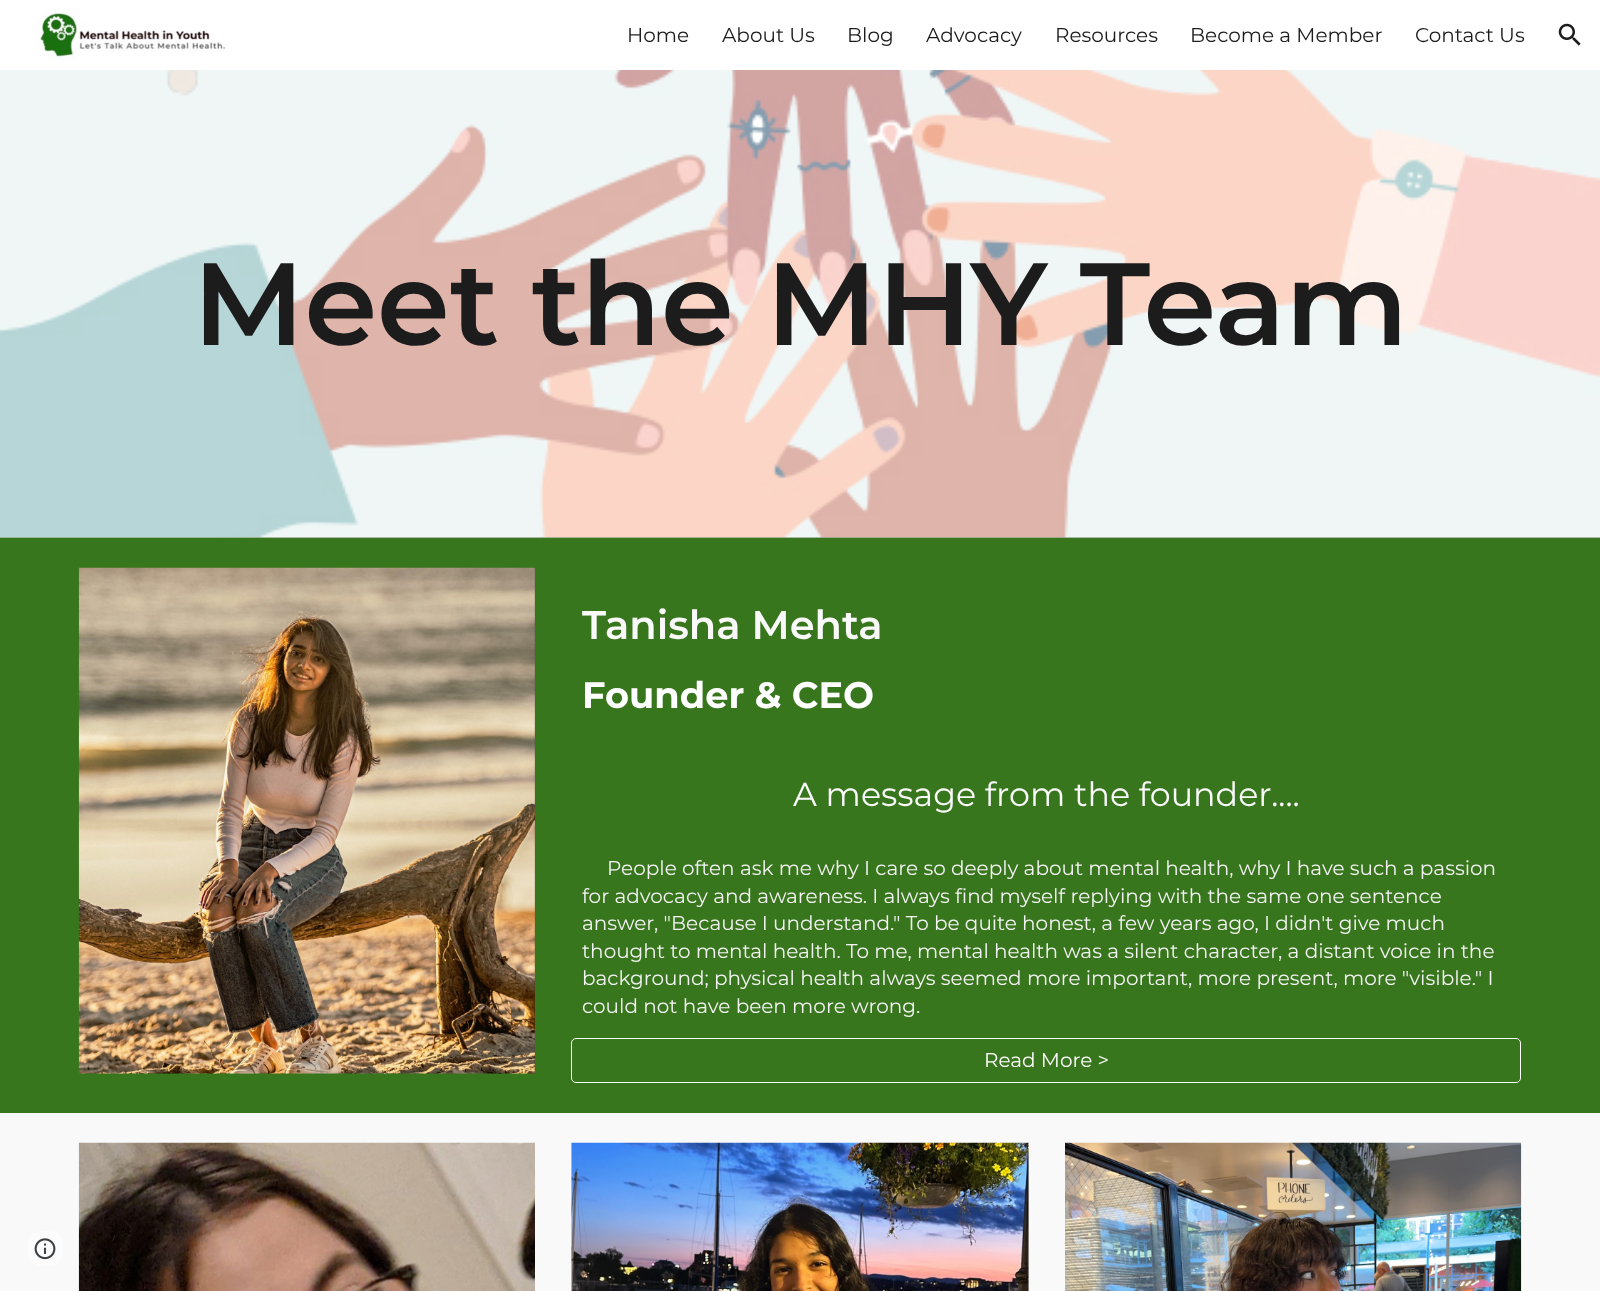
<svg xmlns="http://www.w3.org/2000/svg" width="1600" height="1291">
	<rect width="100%" height="100%" fill="#38761D" />
	<rect x="0" y="0" width="1600" height="70" fill="#FFFFFF" />
	<image x="36" y="10" width="189" height="50" href="assets/img1.png" />
	<g font-family="Montserrat" font-size="20" fill="#1C1C1C">
		<text x="627" y="42">Home</text>
		<text x="722" y="42">About Us</text>
		<text x="847" y="42">Blog</text>
		<text x="926" y="42">Advocacy</text>
		<text x="1055" y="42">Resources</text>
		<text x="1190" y="42">Become a Member</text>
		<text x="1415" y="42">Contact Us</text>
	</g>
	<image x="1558" y="23" width="23" height="23" href="assets/img2.png" />
	<rect x="0" y="537" width="1600" height="1" fill="#93A789" />
	<image x="0" y="70" width="1600" height="468" href="assets/img3.png" />
	<text x="193" y="345" font-family="Montserrat" font-size="116.75" font-weight="600" fill="#1C1C1C">Meet the MHY Team</text>
	<image x="78" y="567" width="457" height="507" href="assets/img4.png" />
	<text x="582" y="639" font-family="Montserrat" font-size="40" font-weight="600" fill="#F9F9F9">Tanisha Mehta</text>
	<text x="582" y="708" font-family="Montserrat" font-size="36.75" font-weight="700" fill="#FFFFFF">Founder &amp; CEO</text>
	<text x="793" y="806" font-family="Montserrat" font-size="33.3" fill="#F9F9F9">A message from the founder....</text>
	<g font-family="Montserrat" font-size="20" fill="#F3F3F3">
		<text x="607" y="875">People often ask me why I care so deeply about mental health, why I have such a passion</text>
		<text x="582" y="903">for advocacy and awareness. I always find myself replying with the same one sentence</text>
		<text x="582" y="930">answer, "Because I understand." To be quite honest, a few years ago, I didn't give much</text>
		<text x="582" y="958">thought to mental health. To me, mental health was a silent character, a distant voice in the</text>
		<text x="582" y="985">background; physical health always seemed more important, more present, more "visible." I</text>
		<text x="582" y="1013">could not have been more wrong.</text>
	</g>
	<rect x="571.5" y="1038.5" width="949" height="44" rx="4.5" fill="none" stroke="#FFFFFF" />
	<text x="984" y="1067" font-family="Montserrat" font-size="20" fill="#FFFFFF">Read More &gt;</text>
	<rect x="0" y="1113" width="1600" height="178" fill="#F9F9F9" />
	<image x="78" y="1142" width="457" height="149" href="assets/img5.png" />
	<image x="571" y="1142" width="458" height="149" href="assets/img6.png" />
	<image x="1065" y="1142" width="457" height="149" href="assets/img7.png" />
	<rect x="28" y="1231" width="35" height="35" rx="13" fill="#FCFCFC" />
	<image x="34" y="1238" width="22" height="22" href="assets/img8.png" />
</svg>
